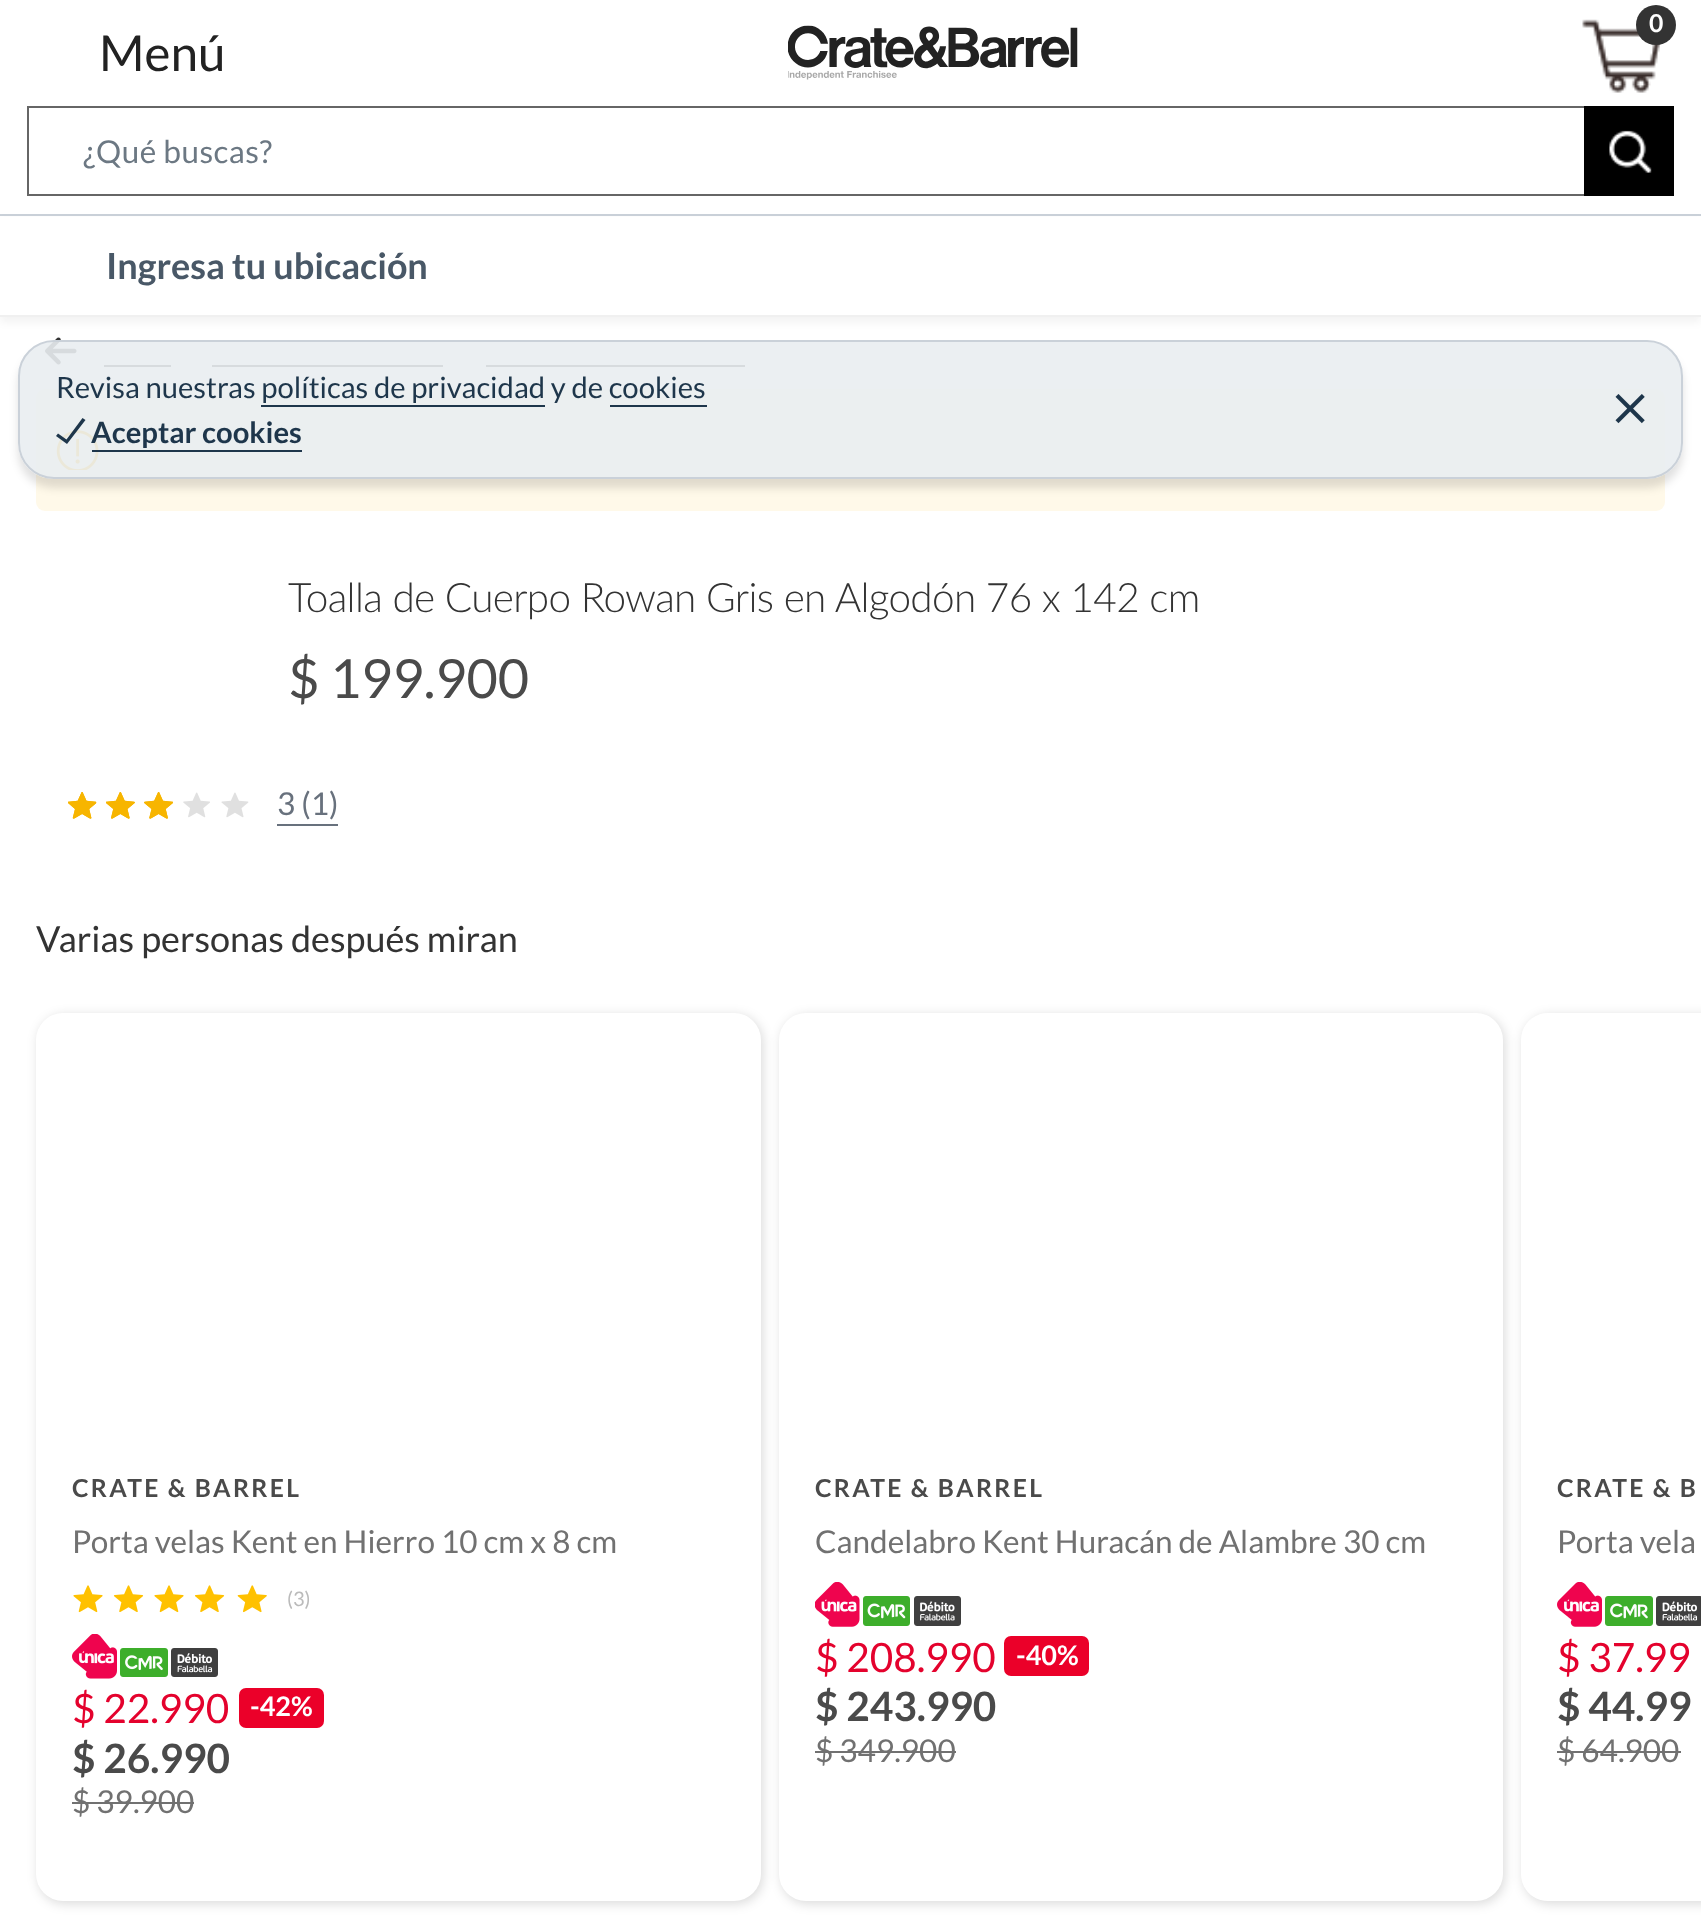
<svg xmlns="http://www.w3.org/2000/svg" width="1701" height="1931">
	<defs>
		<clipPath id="clip1"><path d="M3 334H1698V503H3ZM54 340H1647C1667 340 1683 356 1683 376V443C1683 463 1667 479 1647 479H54C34 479 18 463 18 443V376C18 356 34 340 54 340Z" clip-rule="evenodd" /></clipPath>
	</defs>
	<rect width="100%" height="100%" fill="#FFFFFF" />
	<image x="1582" y="19" width="78" height="74" href="assets/img1.png" />
	<circle cx="1656" cy="25" r="20" fill="#333333" />
	<text x="1649" y="32" font-family="Lato" font-size="24.75" font-weight="700" fill="#FFFFFF">0</text>
	<text x="99" y="71" font-family="Lato" font-size="49.5" fill="#222222">Menú</text>
	<image x="788" y="25" width="290" height="55" href="assets/img2.png" />
	<rect x="28" y="107" width="1645" height="88" fill="none" stroke="#666666" stroke-width="2" />
	<text x="83" y="163" font-family="Lato" font-size="31.5" letter-spacing="0.5" fill="#6C7883">¿Qué buscas?</text>
	<rect x="1584" y="106" width="90" height="90" fill="#000000" />
	<image x="1609" y="130" width="43" height="43" href="assets/img3.png" />
	<rect x="0" y="214" width="1701" height="2" fill="#CAD1D9" />
	<rect x="0" y="221" width="1701" height="101" fill="#000000" fill-opacity="0.05" filter="blur(4.5px)" />
	<rect x="0" y="217" width="1701" height="98" fill="#FFFFFF" />
	<rect x="0" y="315" width="1701" height="2" fill="#F0F0F0" />
	<text x="106" y="279" font-family="Lato" font-size="36" font-weight="700" fill="#495867">Ingresa tu ubicación</text>
	<image x="45" y="337" width="32" height="28" href="assets/img5.png" />
	<rect x="104" y="365" width="67" height="2" fill="#333333" />
	<rect x="212" y="365" width="231" height="2" fill="#333333" />
	<rect x="486" y="365" width="259" height="2" fill="#333333" />
	<rect x="36" y="389" width="1629" height="122" rx="9" fill="#FFF9E9" />
	<image x="56" y="430" width="43" height="40" href="assets/img6.png" />
	<g clip-path="url(#clip1)">
		<rect x="18" y="349" width="1665" height="139" rx="36" fill="#000000" fill-opacity="0.12" filter="blur(4.5px)" />
	</g>
	<rect x="19" y="341" width="1663" height="137" rx="35" fill="#E9EDF1" fill-opacity="0.9" stroke="#CAD1D9" stroke-width="2" />
	<text x="56" y="398" font-family="Lato" font-size="29.25" fill="#1E364B">Revisa nuestras políticas de privacidad y de cookies</text>
	<rect x="261" y="405" width="284" height="2" fill="#1E364B" />
	<rect x="610" y="405" width="97" height="2" fill="#1E364B" />
	<path d="M66.5 439.5L82.5 418L85.5 420L67 444L56 436L58 433.5Z" fill="#1E364B" />
	<text x="91" y="443" font-family="Lato" font-size="29.25" font-weight="700" fill="#1E364B">Aceptar cookies</text>
	<rect x="92" y="450" width="210" height="2" fill="#1E364B" />
	<image x="1615" y="394" width="30" height="30" href="assets/img4.png" />
	<text x="288" y="612" font-family="Lato" font-size="40.5" font-weight="300" letter-spacing="-0.67" fill="#333333">Toalla de Cuerpo Rowan Gris en Algodón 76 x 142 cm</text>
	<text x="288" y="698" font-family="Lato" font-size="54" fill="#4A4A4A">$ 199.900</text>
	<image x="68" y="792" width="29" height="27" href="assets/img7.png" />
	<image x="106" y="792" width="29" height="27" href="assets/img8.png" />
	<image x="144" y="792" width="29" height="27" href="assets/img9.png" />
	<image x="183" y="792" width="27" height="26" href="assets/img10.png" />
	<image x="221" y="792" width="28" height="26" href="assets/img11.png" />
	<rect x="277" y="824" width="61" height="2" fill="#68717D" />
	<text x="277" y="815" font-family="Lato" font-size="31.5" fill="#68717D">3 (1)</text>
	<text x="36" y="952" font-family="Lato" font-size="36" fill="#333333">Varias personas después miran</text>
	<rect x="38" y="1015" width="725" height="889" rx="27" fill="#000000" fill-opacity="0.14" filter="blur(5.5px)" />
	<rect x="36" y="1013" width="725" height="888" rx="27" fill="#FFFFFF" />
	<text x="72" y="1497" font-family="Lato" font-size="24.75" font-weight="700" letter-spacing="2.25" fill="#4A4A4A">CRATE &amp; BARREL</text>
	<text x="72" y="1553" font-family="Lato" font-size="31.5" fill="#717171">Porta velas Kent en Hierro 10 cm x 8 cm</text>
	<image x="73" y="1585" width="30" height="28" href="assets/img12.png" />
	<image x="113" y="1585" width="31" height="27" href="assets/img13.png" />
	<image x="154" y="1585" width="30" height="28" href="assets/img12.png" />
	<image x="194" y="1585" width="31" height="27" href="assets/img13.png" />
	<image x="237" y="1585" width="30" height="28" href="assets/img14.png" />
	<text x="287" y="1606" font-family="Lato" font-size="20" fill="#BBBBBB">(3)</text>
	<image x="72" y="1634" width="146" height="45" href="assets/img15.png" />
	<text x="72" y="1723" font-family="Lato" font-size="40.5" fill="#E4022D">$ 22.990</text>
	<rect x="239" y="1688" width="85" height="40" rx="7" fill="#EB0029" />
	<text x="250" y="1716" font-family="Lato" font-size="27" font-weight="700" fill="#FFFFFF">-42%</text>
	<text x="72" y="1773" font-family="Lato" font-size="40.5" font-weight="700" fill="#4A4A4A">$ 26.990</text>
	<text x="72" y="1813" font-family="Lato" font-size="31.5" fill="#717171">$ 39.900</text>
	<rect x="72" y="1802" width="122" height="2" fill="#717171" />
	<rect x="781" y="1015" width="724" height="889" rx="27" fill="#000000" fill-opacity="0.14" filter="blur(5.5px)" />
	<rect x="779" y="1013" width="724" height="888" rx="27" fill="#FFFFFF" />
	<text x="815" y="1497" font-family="Lato" font-size="24.75" font-weight="700" letter-spacing="2.25" fill="#4A4A4A">CRATE &amp; BARREL</text>
	<text x="815" y="1553" font-family="Lato" font-size="31.5" fill="#717171">Candelabro Kent Huracán de Alambre 30 cm</text>
	<image x="815" y="1582" width="146" height="45" href="assets/img16.png" />
	<text x="815" y="1672" font-family="Lato" font-size="40.5" fill="#E4022D">$ 208.990</text>
	<rect x="1004" y="1636" width="85" height="40" rx="7" fill="#EB0029" />
	<text x="1016" y="1665" font-family="Lato" font-size="27" font-weight="700" fill="#FFFFFF">-40%</text>
	<text x="815" y="1721" font-family="Lato" font-size="40.5" font-weight="700" fill="#4A4A4A">$ 243.990</text>
	<text x="815" y="1762" font-family="Lato" font-size="31.5" fill="#717171">$ 349.900</text>
	<rect x="815" y="1751" width="141" height="2" fill="#717171" />
	<rect x="1523" y="1015" width="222" height="889" rx="27" fill="#000000" fill-opacity="0.14" filter="blur(5.5px)" />
	<path d="M1548 1013H1701V1901H1548C1533 1901 1521 1889 1521 1874V1040C1521 1025 1533 1013 1548 1013Z" fill="#FFFFFF" />
	<text x="1557" y="1497" font-family="Lato" font-size="24.75" font-weight="700" letter-spacing="2.25" fill="#4A4A4A">CRATE &amp; B</text>
	<text x="1557" y="1553" font-family="Lato" font-size="31.5" fill="#717171">Porta vela</text>
	<image x="1557" y="1582" width="144" height="45" href="assets/img17.png" />
	<text x="1557" y="1672" font-family="Lato" font-size="40.5" fill="#E4022D">$ 37.99</text>
	<text x="1557" y="1721" font-family="Lato" font-size="40.5" font-weight="700" fill="#4A4A4A">$ 44.99</text>
	<text x="1557" y="1762" font-family="Lato" font-size="31.5" fill="#717171">$ 64.900</text>
	<rect x="1557" y="1751" width="124" height="2" fill="#717171" />
</svg>
